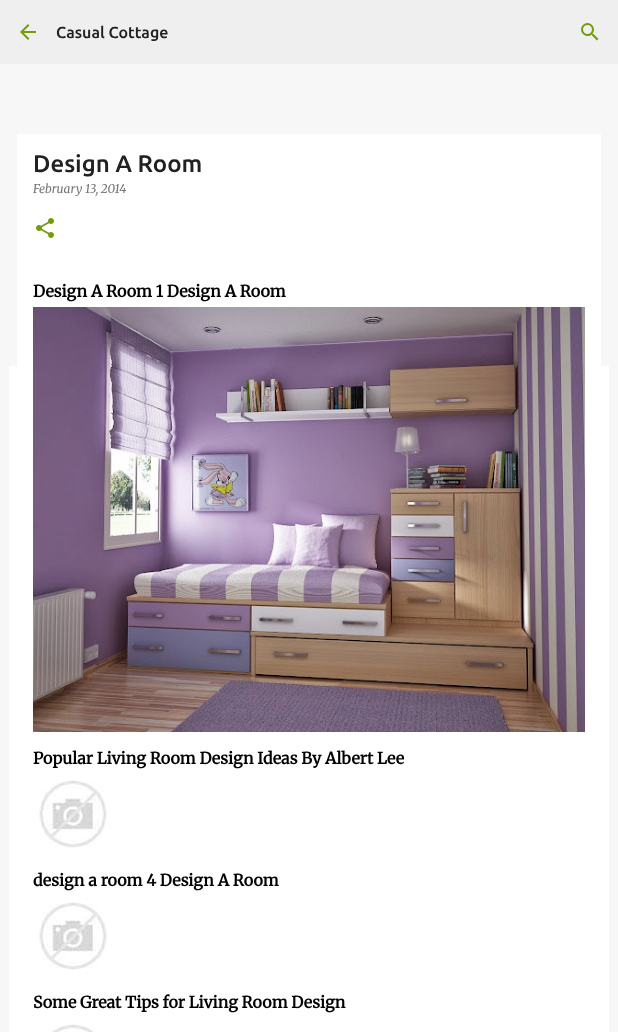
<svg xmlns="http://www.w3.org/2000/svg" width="618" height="1032">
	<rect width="100%" height="100%" fill="#F7F7F7" />
	<rect x="0" y="0" width="618" height="64" fill="#EFEFEF" />
	<image x="20" y="24" width="16" height="16" href="assets/img1.png" />
	<text x="56" y="38" font-family="Ubuntu" font-size="16" font-weight="500" fill="#212121">Casual Cottage</text>
	<image x="581" y="23" width="18" height="18" href="assets/img2.png" />
	<rect x="9" y="366" width="600" height="666" fill="#FFFFFF" />
	<rect x="17" y="134" width="584" height="232" fill="#FFFFFF" />
	<text x="33" y="172" font-family="Ubuntu" font-size="24" font-weight="500" fill="#212121">Design A Room</text>
	<text x="33" y="193" font-family="Merriweather" font-size="12" font-style="italic" fill="#757575">February 13, 2014</text>
	<image x="36" y="218" width="18" height="20" href="assets/img3.png" />
	<text x="33" y="297" font-family="Merriweather" font-size="16" font-weight="700" fill="#000000">Design A Room 1 Design A Room</text>
	<image x="33" y="307" width="552" height="425" href="assets/img4.png" />
	<text x="33" y="764" font-family="Merriweather" font-size="16" font-weight="700" fill="#000000">Popular Living Room Design Ideas By Albert Lee</text>
	<image x="39" y="780" width="68" height="68" href="assets/img5.png" />
	<text x="33" y="886" font-family="Merriweather" font-size="16" font-weight="700" fill="#000000">design a room 4 Design A Room</text>
	<image x="39" y="902" width="68" height="68" href="assets/img5.png" />
	<text x="33" y="1008" font-family="Merriweather" font-size="16" font-weight="700" fill="#000000">Some Great Tips for Living Room Design</text>
	<image x="51" y="1024" width="44" height="8" href="assets/img6.png" />
</svg>
